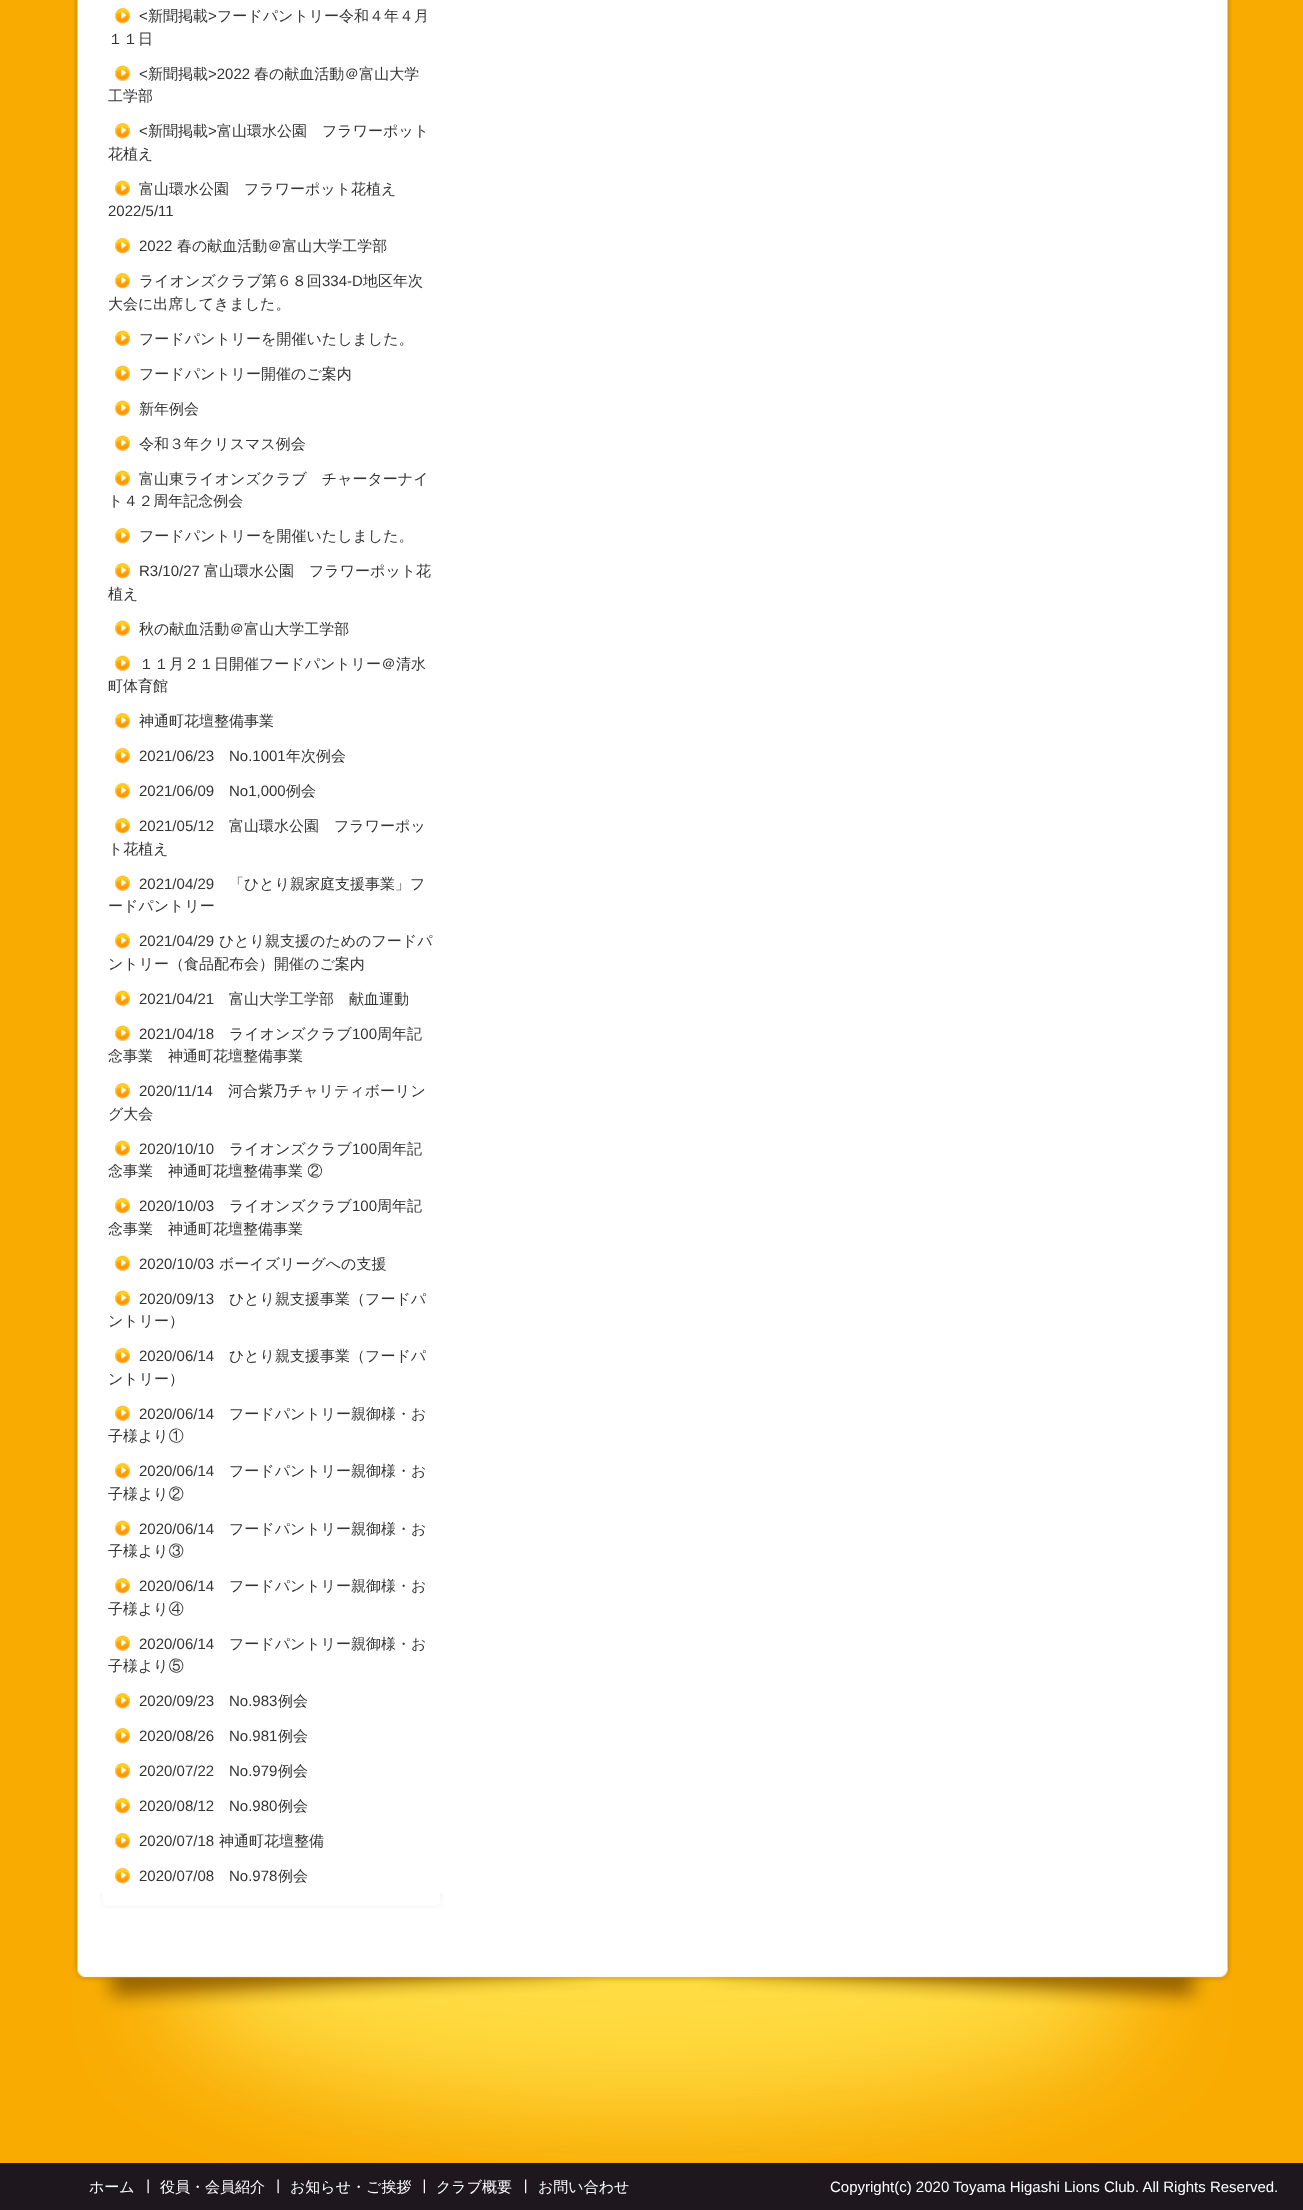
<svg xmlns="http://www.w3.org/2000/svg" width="1303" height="2210">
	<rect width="100%" height="100%" fill="#F9AB01" />
	<image x="73" y="0" width="1159" height="1962" href="assets/img1.png" />
	<image x="100" y="1893" width="343" height="16" href="assets/img2.png" />
	<image x="115" y="8" width="15" height="16" href="assets/img3.png" />
	<text x="139" y="21" font-family="Liberation Sans" font-size="15" fill="#333333">&lt;</text>
	<text x="148" y="21" font-family="WenQuanYi Zen Hei" font-size="15" font-weight="500" fill="#333333">新聞掲載</text>
	<text x="208" y="21" font-family="Liberation Sans" font-size="15" fill="#333333">&gt;</text>
	<g font-family="WenQuanYi Zen Hei" font-size="15" font-weight="500" fill="#333333">
		<text x="217" y="21">フードパントリー令和４年４月</text>
		<text x="108" y="44">１１日</text>
	</g>
	<image x="115" y="65" width="15" height="16" href="assets/img4.png" />
	<text x="139" y="79" font-family="Liberation Sans" font-size="15" fill="#333333">&lt;</text>
	<text x="148" y="79" font-family="WenQuanYi Zen Hei" font-size="15" font-weight="500" fill="#333333">新聞掲載</text>
	<text x="208" y="79" font-family="Liberation Sans" font-size="15" fill="#333333">&gt;2022</text>
	<g font-family="WenQuanYi Zen Hei" font-size="15" font-weight="500" fill="#333333">
		<text x="254" y="79">春の献血活動＠富山大学</text>
		<text x="108" y="101">工学部</text>
	</g>
	<image x="115" y="123" width="15" height="16" href="assets/img3.png" />
	<text x="139" y="136" font-family="Liberation Sans" font-size="15" fill="#333333">&lt;</text>
	<text x="148" y="136" font-family="WenQuanYi Zen Hei" font-size="15" font-weight="500" fill="#333333">新聞掲載</text>
	<text x="208" y="136" font-family="Liberation Sans" font-size="15" fill="#333333">&gt;</text>
	<g font-family="WenQuanYi Zen Hei" font-size="15" font-weight="500" fill="#333333">
		<text x="217" y="136">富山環水公園　フラワーポット</text>
		<text x="108" y="159">花植え</text>
	</g>
	<image x="115" y="180" width="15" height="16" href="assets/img4.png" />
	<text x="139" y="194" font-family="WenQuanYi Zen Hei" font-size="15" font-weight="500" fill="#333333">富山環水公園　フラワーポット花植え</text>
	<text x="108" y="216" font-family="Liberation Sans" font-size="15" fill="#333333">2022/5/11</text>
	<image x="115" y="238" width="15" height="16" href="assets/img3.png" />
	<text x="139" y="251" font-family="Liberation Sans" font-size="15" fill="#333333">2022</text>
	<text x="177" y="251" font-family="WenQuanYi Zen Hei" font-size="15" font-weight="500" fill="#333333">春の献血活動＠富山大学工学部</text>
	<image x="115" y="273" width="15" height="16" href="assets/img3.png" />
	<text x="139" y="286" font-family="WenQuanYi Zen Hei" font-size="15" font-weight="500" fill="#333333">ライオンズクラブ第６８回</text>
	<text x="322" y="286" font-family="Liberation Sans" font-size="15" fill="#333333">334-D</text>
	<g font-family="WenQuanYi Zen Hei" font-size="15" font-weight="500" fill="#333333">
		<text x="363" y="286">地区年次</text>
		<text x="108" y="309">大会に出席してきました。</text>
	</g>
	<image x="115" y="330" width="15" height="16" href="assets/img4.png" />
	<text x="139" y="344" font-family="WenQuanYi Zen Hei" font-size="15" font-weight="500" fill="#333333">フードパントリーを開催いたしました。</text>
	<image x="115" y="365" width="15" height="16" href="assets/img4.png" />
	<text x="139" y="379" font-family="WenQuanYi Zen Hei" font-size="15" font-weight="500" fill="#333333">フードパントリー開催のご案内</text>
	<image x="115" y="400" width="15" height="16" href="assets/img4.png" />
	<text x="139" y="414" font-family="WenQuanYi Zen Hei" font-size="15" font-weight="500" fill="#333333">新年例会</text>
	<image x="115" y="435" width="15" height="16" href="assets/img4.png" />
	<text x="139" y="449" font-family="WenQuanYi Zen Hei" font-size="15" font-weight="500" fill="#333333">令和３年クリスマス例会</text>
	<image x="115" y="470" width="15" height="16" href="assets/img5.png" />
	<g font-family="WenQuanYi Zen Hei" font-size="15" font-weight="500" fill="#333333">
		<text x="139" y="484">富山東ライオンズクラブ　チャーターナイ</text>
		<text x="108" y="506">ト４２周年記念例会</text>
	</g>
	<image x="115" y="528" width="15" height="16" href="assets/img3.png" />
	<text x="139" y="541" font-family="WenQuanYi Zen Hei" font-size="15" font-weight="500" fill="#333333">フードパントリーを開催いたしました。</text>
	<image x="115" y="563" width="15" height="16" href="assets/img3.png" />
	<text x="139" y="576" font-family="Liberation Sans" font-size="15" fill="#333333">R3/10/27</text>
	<g font-family="WenQuanYi Zen Hei" font-size="15" font-weight="500" fill="#333333">
		<text x="204" y="576">富山環水公園　フラワーポット花</text>
		<text x="108" y="599">植え</text>
	</g>
	<image x="115" y="620" width="15" height="16" href="assets/img4.png" />
	<text x="139" y="634" font-family="WenQuanYi Zen Hei" font-size="15" font-weight="500" fill="#333333">秋の献血活動＠富山大学工学部</text>
	<image x="115" y="655" width="15" height="16" href="assets/img4.png" />
	<g font-family="WenQuanYi Zen Hei" font-size="15" font-weight="500" fill="#333333">
		<text x="139" y="669">１１月２１日開催フードパントリー＠清水</text>
		<text x="108" y="691">町体育館</text>
	</g>
	<image x="115" y="713" width="15" height="16" href="assets/img3.png" />
	<text x="139" y="726" font-family="WenQuanYi Zen Hei" font-size="15" font-weight="500" fill="#333333">神通町花壇整備事業</text>
	<image x="115" y="748" width="15" height="16" href="assets/img3.png" />
	<g font-family="Liberation Sans" font-size="15" fill="#333333">
		<text x="139" y="761">2021/06/23</text>
		<text x="229" y="761">No.1001</text>
	</g>
	<text x="286" y="761" font-family="WenQuanYi Zen Hei" font-size="15" font-weight="500" fill="#333333">年次例会</text>
	<image x="115" y="783" width="15" height="16" href="assets/img3.png" />
	<g font-family="Liberation Sans" font-size="15" fill="#333333">
		<text x="139" y="796">2021/06/09</text>
		<text x="229" y="796">No1,000</text>
	</g>
	<text x="286" y="796" font-family="WenQuanYi Zen Hei" font-size="15" font-weight="500" fill="#333333">例会</text>
	<image x="115" y="818" width="15" height="16" href="assets/img3.png" />
	<text x="139" y="831" font-family="Liberation Sans" font-size="15" fill="#333333">2021/05/12</text>
	<g font-family="WenQuanYi Zen Hei" font-size="15" font-weight="500" fill="#333333">
		<text x="229" y="831">富山環水公園　フラワーポッ</text>
		<text x="108" y="854">ト花植え</text>
	</g>
	<image x="115" y="875" width="15" height="16" href="assets/img4.png" />
	<text x="139" y="889" font-family="Liberation Sans" font-size="15" fill="#333333">2021/04/29</text>
	<g font-family="WenQuanYi Zen Hei" font-size="15" font-weight="500" fill="#333333">
		<text x="229" y="889">「ひとり親家庭支援事業」フ</text>
		<text x="108" y="911">ードパントリー</text>
	</g>
	<image x="115" y="933" width="15" height="16" href="assets/img3.png" />
	<text x="139" y="946" font-family="Liberation Sans" font-size="15" fill="#333333">2021/04/29</text>
	<g font-family="WenQuanYi Zen Hei" font-size="15" font-weight="500" fill="#333333">
		<text x="219" y="946">ひとり親支援のためのフードパ</text>
		<text x="108" y="969">ントリー（食品配布会）開催のご案内</text>
	</g>
	<image x="115" y="990" width="15" height="16" href="assets/img4.png" />
	<text x="139" y="1004" font-family="Liberation Sans" font-size="15" fill="#333333">2021/04/21</text>
	<text x="229" y="1004" font-family="WenQuanYi Zen Hei" font-size="15" font-weight="500" fill="#333333">富山大学工学部　献血運動</text>
	<image x="115" y="1025" width="15" height="16" href="assets/img4.png" />
	<text x="139" y="1039" font-family="Liberation Sans" font-size="15" fill="#333333">2021/04/18</text>
	<text x="229" y="1039" font-family="WenQuanYi Zen Hei" font-size="15" font-weight="500" fill="#333333">ライオンズクラブ</text>
	<text x="352" y="1039" font-family="Liberation Sans" font-size="15" fill="#333333">100</text>
	<g font-family="WenQuanYi Zen Hei" font-size="15" font-weight="500" fill="#333333">
		<text x="377" y="1039">周年記</text>
		<text x="108" y="1061">念事業　神通町花壇整備事業</text>
	</g>
	<image x="115" y="1083" width="15" height="16" href="assets/img3.png" />
	<text x="139" y="1096" font-family="Liberation Sans" font-size="15" fill="#333333">2020/11/14</text>
	<g font-family="WenQuanYi Zen Hei" font-size="15" font-weight="500" fill="#333333">
		<text x="228" y="1096">河合紫乃チャリティボーリン</text>
		<text x="108" y="1119">グ大会</text>
	</g>
	<image x="115" y="1140" width="15" height="16" href="assets/img4.png" />
	<text x="139" y="1154" font-family="Liberation Sans" font-size="15" fill="#333333">2020/10/10</text>
	<text x="229" y="1154" font-family="WenQuanYi Zen Hei" font-size="15" font-weight="500" fill="#333333">ライオンズクラブ</text>
	<text x="352" y="1154" font-family="Liberation Sans" font-size="15" fill="#333333">100</text>
	<g font-family="WenQuanYi Zen Hei" font-size="15" font-weight="500" fill="#333333">
		<text x="377" y="1154">周年記</text>
		<text x="108" y="1176">念事業　神通町花壇整備事業 ②</text>
	</g>
	<image x="115" y="1198" width="15" height="16" href="assets/img6.png" />
	<text x="139" y="1211" font-family="Liberation Sans" font-size="15" fill="#333333">2020/10/03</text>
	<text x="229" y="1211" font-family="WenQuanYi Zen Hei" font-size="15" font-weight="500" fill="#333333">ライオンズクラブ</text>
	<text x="352" y="1211" font-family="Liberation Sans" font-size="15" fill="#333333">100</text>
	<g font-family="WenQuanYi Zen Hei" font-size="15" font-weight="500" fill="#333333">
		<text x="377" y="1211">周年記</text>
		<text x="108" y="1234">念事業　神通町花壇整備事業</text>
	</g>
	<image x="115" y="1255" width="15" height="16" href="assets/img4.png" />
	<text x="139" y="1269" font-family="Liberation Sans" font-size="15" fill="#333333">2020/10/03</text>
	<text x="219" y="1269" font-family="WenQuanYi Zen Hei" font-size="15" font-weight="500" fill="#333333">ボーイズリーグへの支援</text>
	<image x="115" y="1290" width="15" height="16" href="assets/img4.png" />
	<text x="139" y="1304" font-family="Liberation Sans" font-size="15" fill="#333333">2020/09/13</text>
	<g font-family="WenQuanYi Zen Hei" font-size="15" font-weight="500" fill="#333333">
		<text x="229" y="1304">ひとり親支援事業（フードパ</text>
		<text x="108" y="1326">ントリー）</text>
	</g>
	<image x="115" y="1348" width="15" height="16" href="assets/img7.png" />
	<text x="139" y="1361" font-family="Liberation Sans" font-size="15" fill="#333333">2020/06/14</text>
	<g font-family="WenQuanYi Zen Hei" font-size="15" font-weight="500" fill="#333333">
		<text x="229" y="1361">ひとり親支援事業（フードパ</text>
		<text x="108" y="1384">ントリー）</text>
	</g>
	<image x="115" y="1405" width="15" height="16" href="assets/img4.png" />
	<text x="139" y="1419" font-family="Liberation Sans" font-size="15" fill="#333333">2020/06/14</text>
	<g font-family="WenQuanYi Zen Hei" font-size="15" font-weight="500" fill="#333333">
		<text x="229" y="1419">フードパントリー親御様・お</text>
		<text x="108" y="1441">子様より①</text>
	</g>
	<image x="115" y="1463" width="15" height="16" href="assets/img3.png" />
	<text x="139" y="1476" font-family="Liberation Sans" font-size="15" fill="#333333">2020/06/14</text>
	<g font-family="WenQuanYi Zen Hei" font-size="15" font-weight="500" fill="#333333">
		<text x="229" y="1476">フードパントリー親御様・お</text>
		<text x="108" y="1499">子様より②</text>
	</g>
	<image x="115" y="1520" width="15" height="16" href="assets/img4.png" />
	<text x="139" y="1534" font-family="Liberation Sans" font-size="15" fill="#333333">2020/06/14</text>
	<g font-family="WenQuanYi Zen Hei" font-size="15" font-weight="500" fill="#333333">
		<text x="229" y="1534">フードパントリー親御様・お</text>
		<text x="108" y="1556">子様より③</text>
	</g>
	<image x="115" y="1578" width="15" height="16" href="assets/img3.png" />
	<text x="139" y="1591" font-family="Liberation Sans" font-size="15" fill="#333333">2020/06/14</text>
	<g font-family="WenQuanYi Zen Hei" font-size="15" font-weight="500" fill="#333333">
		<text x="229" y="1591">フードパントリー親御様・お</text>
		<text x="108" y="1614">子様より④</text>
	</g>
	<image x="115" y="1635" width="15" height="16" href="assets/img4.png" />
	<text x="139" y="1649" font-family="Liberation Sans" font-size="15" fill="#333333">2020/06/14</text>
	<g font-family="WenQuanYi Zen Hei" font-size="15" font-weight="500" fill="#333333">
		<text x="229" y="1649">フードパントリー親御様・お</text>
		<text x="108" y="1671">子様より⑤</text>
	</g>
	<image x="115" y="1693" width="15" height="16" href="assets/img3.png" />
	<g font-family="Liberation Sans" font-size="15" fill="#333333">
		<text x="139" y="1706">2020/09/23</text>
		<text x="229" y="1706">No.983</text>
	</g>
	<text x="278" y="1706" font-family="WenQuanYi Zen Hei" font-size="15" font-weight="500" fill="#333333">例会</text>
	<image x="115" y="1728" width="15" height="16" href="assets/img3.png" />
	<g font-family="Liberation Sans" font-size="15" fill="#333333">
		<text x="139" y="1741">2020/08/26</text>
		<text x="229" y="1741">No.981</text>
	</g>
	<text x="278" y="1741" font-family="WenQuanYi Zen Hei" font-size="15" font-weight="500" fill="#333333">例会</text>
	<image x="115" y="1763" width="15" height="16" href="assets/img3.png" />
	<g font-family="Liberation Sans" font-size="15" fill="#333333">
		<text x="139" y="1776">2020/07/22</text>
		<text x="229" y="1776">No.979</text>
	</g>
	<text x="278" y="1776" font-family="WenQuanYi Zen Hei" font-size="15" font-weight="500" fill="#333333">例会</text>
	<image x="115" y="1798" width="15" height="16" href="assets/img3.png" />
	<g font-family="Liberation Sans" font-size="15" fill="#333333">
		<text x="139" y="1811">2020/08/12</text>
		<text x="229" y="1811">No.980</text>
	</g>
	<text x="278" y="1811" font-family="WenQuanYi Zen Hei" font-size="15" font-weight="500" fill="#333333">例会</text>
	<image x="115" y="1833" width="15" height="16" href="assets/img3.png" />
	<text x="139" y="1846" font-family="Liberation Sans" font-size="15" fill="#333333">2020/07/18</text>
	<text x="219" y="1846" font-family="WenQuanYi Zen Hei" font-size="15" font-weight="500" fill="#333333">神通町花壇整備</text>
	<image x="115" y="1868" width="15" height="16" href="assets/img3.png" />
	<g font-family="Liberation Sans" font-size="15" fill="#333333">
		<text x="139" y="1881">2020/07/08</text>
		<text x="229" y="1881">No.978</text>
	</g>
	<text x="278" y="1881" font-family="WenQuanYi Zen Hei" font-size="15" font-weight="500" fill="#333333">例会</text>
	<image x="72" y="1962" width="1160" height="200" href="assets/img8.png" />
	<rect x="0" y="2163" width="1303" height="47" fill="#1E171E" />
	<text x="89" y="2192" font-family="WenQuanYi Zen Hei" font-size="15" font-weight="500" fill="#FFFFFF">ホーム</text>
	<image x="147" y="2179" width="2" height="15" href="assets/img9.png" />
	<text x="160" y="2192" font-family="WenQuanYi Zen Hei" font-size="15" font-weight="500" fill="#FFFFFF">役員・会員紹介</text>
	<image x="277" y="2179" width="2" height="15" href="assets/img9.png" />
	<text x="290" y="2192" font-family="WenQuanYi Zen Hei" font-size="15" font-weight="500" fill="#FFFFFF">お知らせ・ご挨拶</text>
	<image x="423" y="2179" width="2" height="15" href="assets/img10.png" />
	<text x="436" y="2192" font-family="WenQuanYi Zen Hei" font-size="15" font-weight="500" fill="#FFFFFF">クラブ概要</text>
	<image x="525" y="2179" width="2" height="15" href="assets/img11.png" />
	<text x="538" y="2192" font-family="WenQuanYi Zen Hei" font-size="15" font-weight="500" fill="#FFFFFF">お問い合わせ</text>
	<text x="830" y="2192" font-family="Liberation Sans" font-size="15" fill="#FFFFFF">Copyright(c) 2020 Toyama Higashi Lions Club. All Rights Reserved.</text>
</svg>
